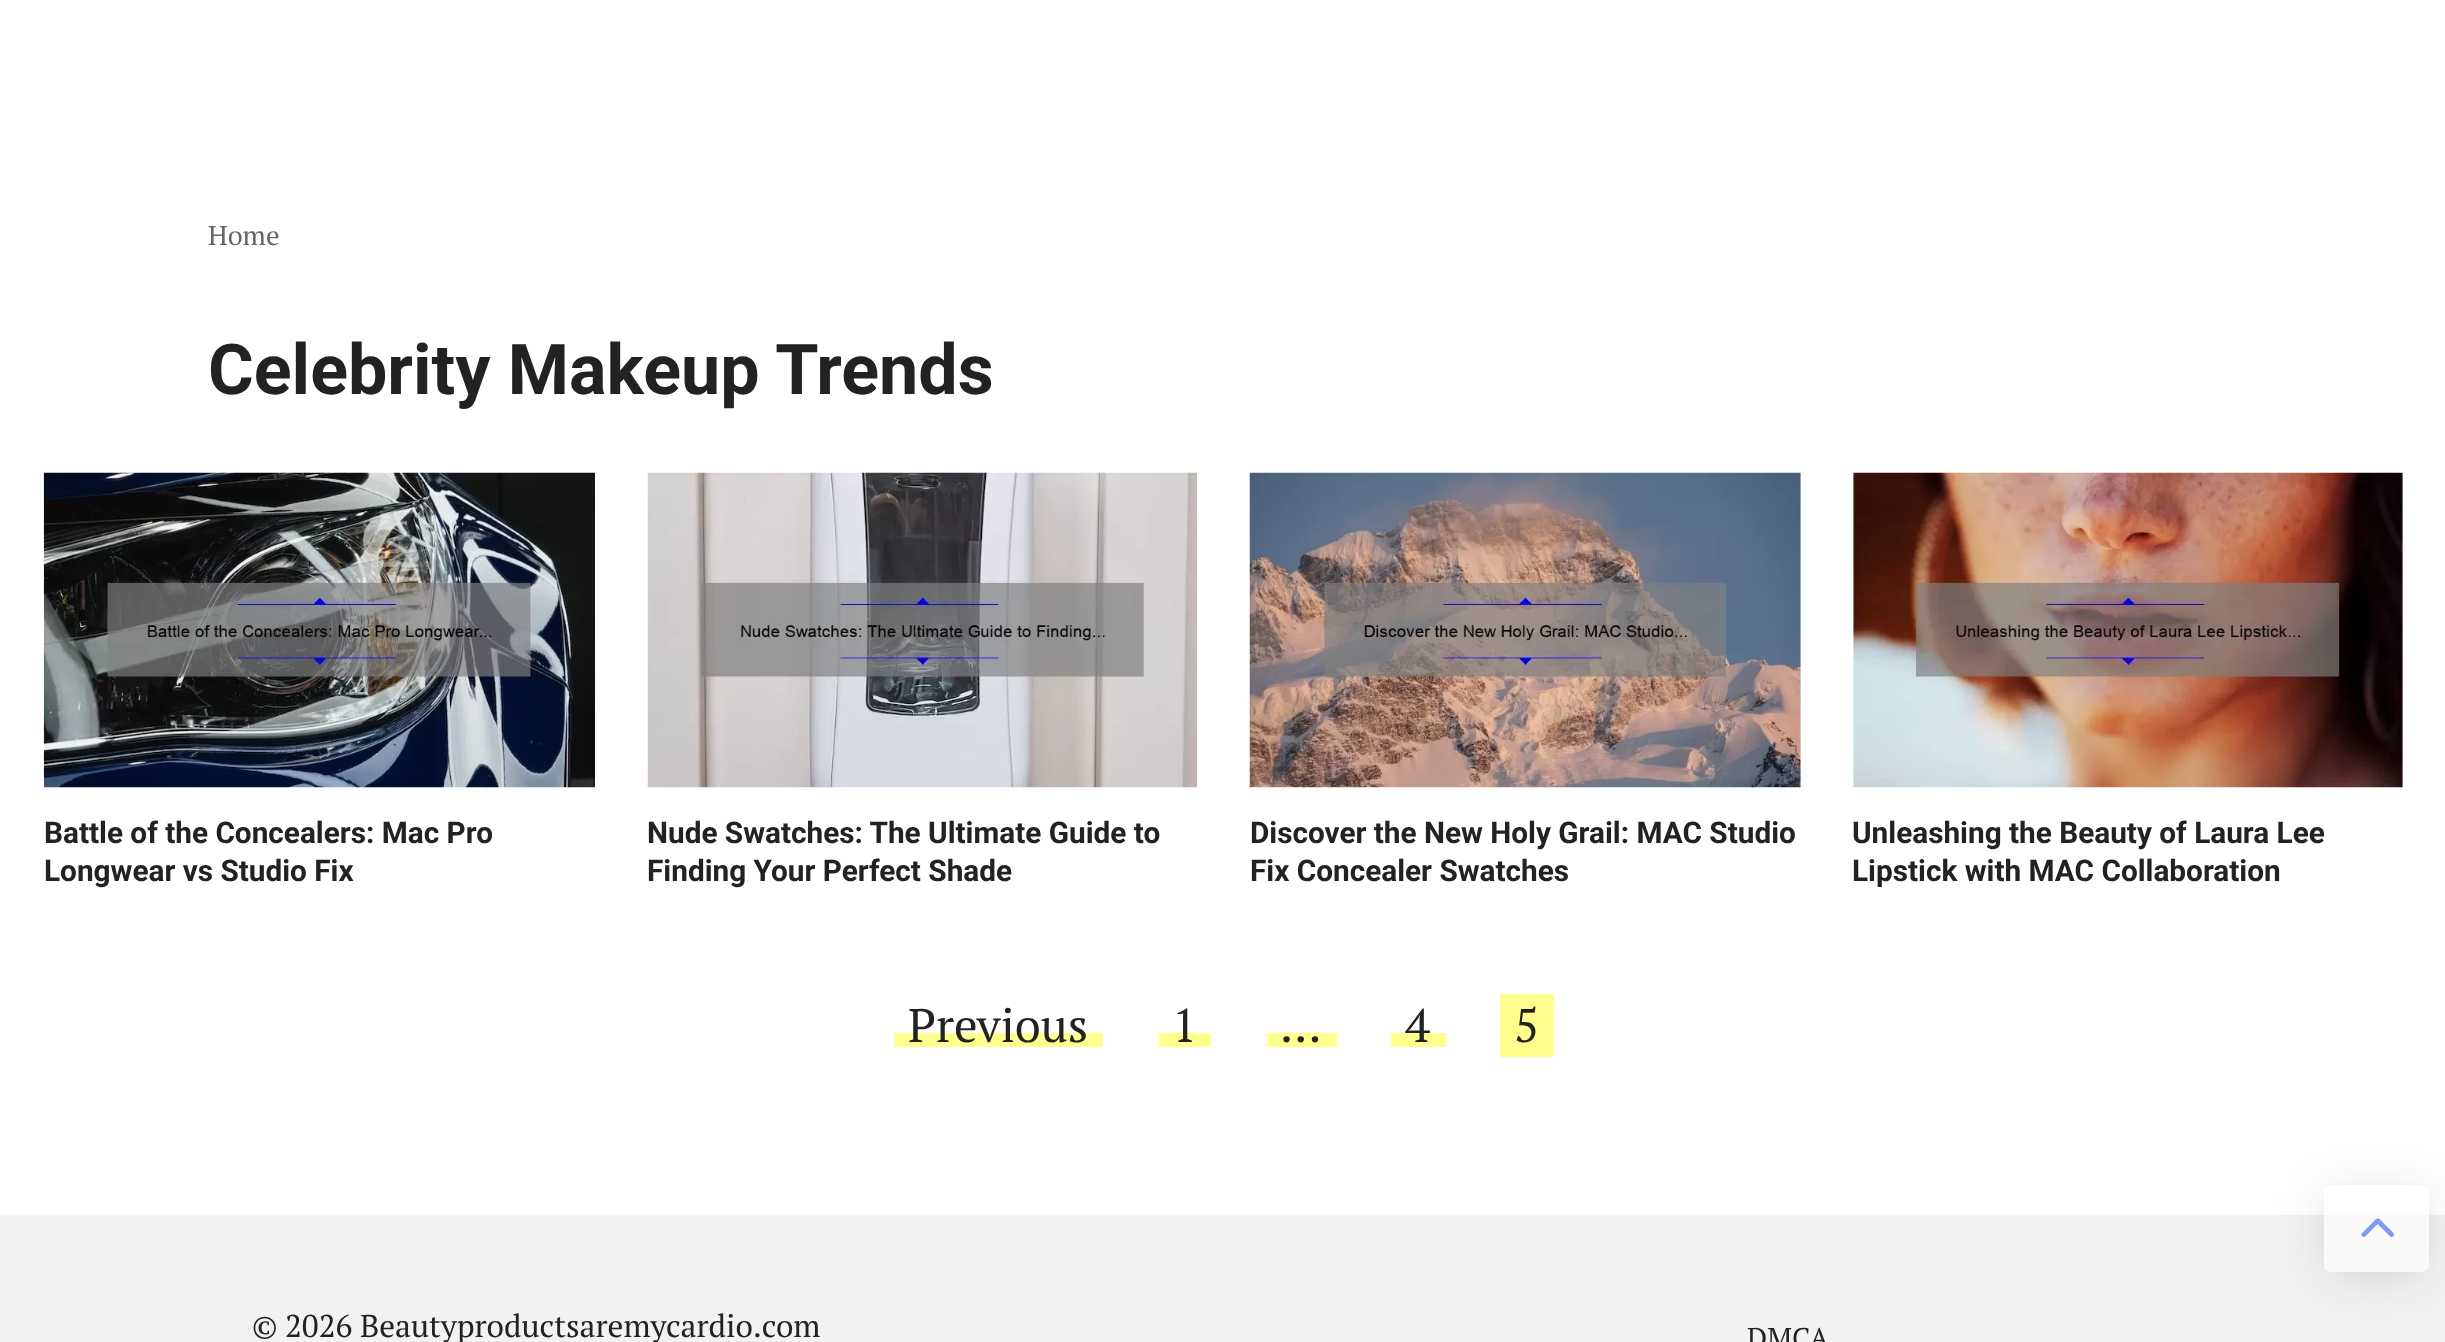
<svg xmlns="http://www.w3.org/2000/svg" width="2445" height="1342">
	<defs>
		<clipPath id="clip1"><path d="M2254 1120H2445V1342H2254ZM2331 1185H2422C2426 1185 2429 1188 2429 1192V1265C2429 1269 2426 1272 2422 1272H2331C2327 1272 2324 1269 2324 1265V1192C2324 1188 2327 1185 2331 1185Z" clip-rule="evenodd" /></clipPath>
	</defs>
	<rect width="100%" height="100%" fill="#FFFFFF" />
	<text x="208" y="245" font-family="PT Serif" font-size="27" fill="#666666">Home</text>
	<text x="208" y="394" font-family="Roboto" font-size="70" font-weight="700" fill="#222222">Celebrity Makeup Trends</text>
	<image x="43" y="472" width="552" height="316" href="assets/img1.png" />
	<g font-family="Roboto" font-size="29.75" font-weight="700" fill="#222222">
		<text x="44" y="843">Battle of the Concealers: Mac Pro</text>
		<text x="44" y="881">Longwear vs Studio Fix</text>
	</g>
	<image x="647" y="472" width="550" height="316" href="assets/img2.png" />
	<g font-family="Roboto" font-size="29.75" font-weight="700" fill="#222222">
		<text x="647" y="843">Nude Swatches: The Ultimate Guide to</text>
		<text x="647" y="881">Finding Your Perfect Shade</text>
	</g>
	<image x="1249" y="472" width="552" height="316" href="assets/img3.png" />
	<g font-family="Roboto" font-size="29.75" font-weight="700" fill="#222222">
		<text x="1250" y="843">Discover the New Holy Grail: MAC Studio</text>
		<text x="1250" y="881">Fix Concealer Swatches</text>
	</g>
	<image x="1853" y="472" width="550" height="316" href="assets/img4.png" />
	<g font-family="Roboto" font-size="29.75" font-weight="700" fill="#222222">
		<text x="1852" y="843">Unleashing the Beauty of Laura Lee</text>
		<text x="1852" y="881">Lipstick with MAC Collaboration</text>
	</g>
	<rect x="894" y="1033" width="209" height="14" fill="#FFFF8E" />
	<text x="908" y="1042" font-family="PT Serif" font-size="47" fill="#222222">Previous</text>
	<rect x="1159" y="1033" width="52" height="14" fill="#FFFF8E" />
	<text x="1172" y="1042" font-family="PT Serif" font-size="47" fill="#222222">1</text>
	<rect x="1267" y="1033" width="70" height="14" fill="#FFFF8E" />
	<text x="1280" y="1042" font-family="PT Serif" font-size="47" fill="#222222">…</text>
	<rect x="1391" y="1033" width="55" height="14" fill="#FFFF8E" />
	<text x="1405" y="1042" font-family="PT Serif" font-size="47" fill="#222222">4</text>
	<rect x="1500" y="994" width="54" height="63" fill="#FFFF8E" />
	<text x="1514" y="1042" font-family="PT Serif" font-size="47" fill="#222222">5</text>
	<rect x="0" y="1215" width="2445" height="127" fill="#F2F2F2" />
	<g clip-path="url(#clip1)">
		<rect x="2333" y="1199" width="87" height="70" fill="#000000" fill-opacity="0.18" filter="blur(26px)" />
	</g>
	<rect x="2324" y="1185" width="105" height="87" rx="7" fill="#FFFFFF" fill-opacity="0.6" />
	<text x="2349" y="1251" font-family="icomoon" font-size="56" fill="#7E98F5">⮝</text>
	<text x="252" y="1337" font-family="PT Serif" font-size="31.5" fill="#222222">© 2026 Beautyproductsaremycardio.com</text>
	<text x="1747" y="1348" font-family="PT Serif" font-size="28.5" fill="#222222">DMCA</text>
</svg>
